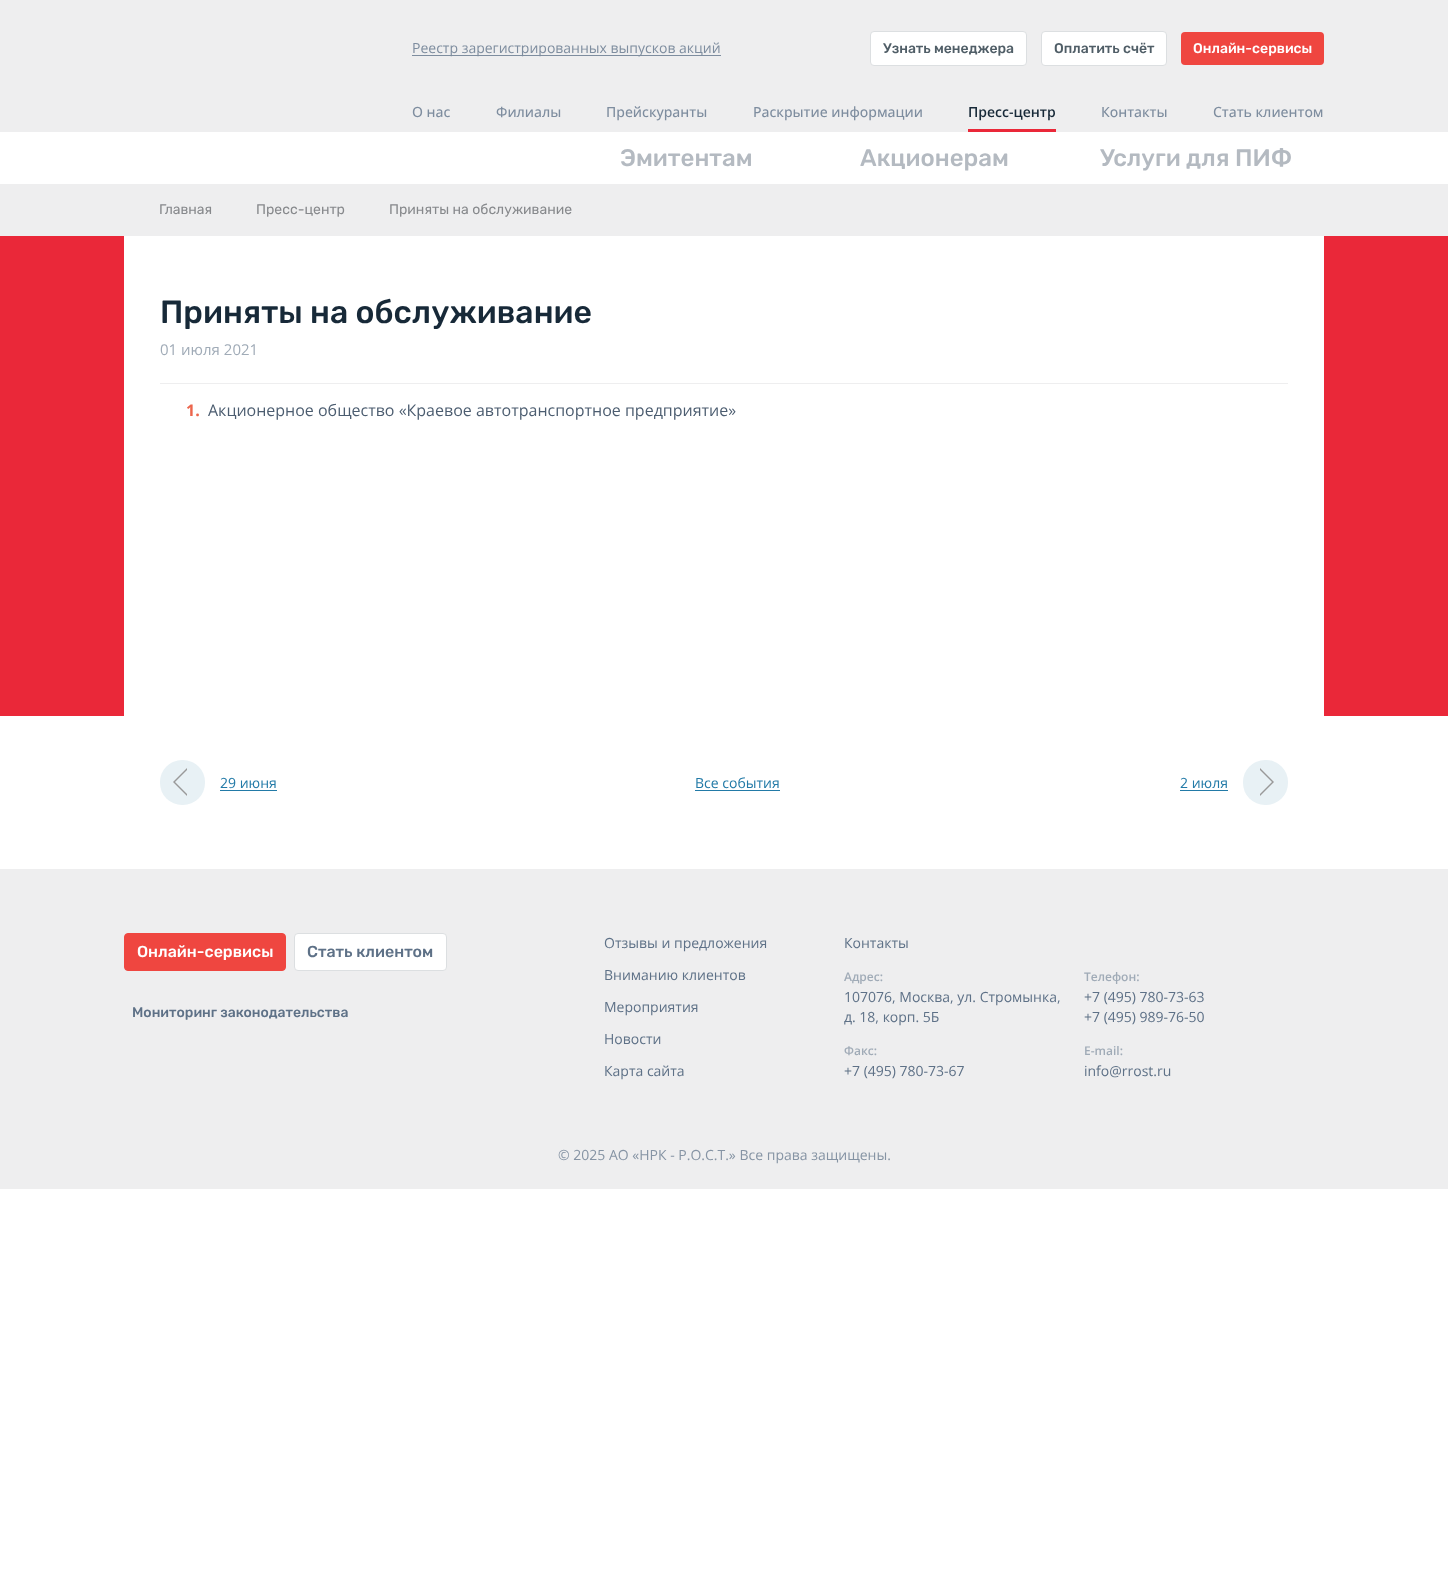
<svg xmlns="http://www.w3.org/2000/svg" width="1448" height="1586">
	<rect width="100%" height="100%" fill="#FFFFFF" />
	<rect x="0" y="0" width="1448" height="132" fill="#EEEEEF" />
	<rect x="412" y="55" width="309" height="1" fill="#7E8D9F" />
	<text x="412" y="53" font-family="Open Sans" font-size="14" fill="#7E8D9F">Реестр зарегистрированных выпусков акций</text>
	<rect x="870.5" y="31.5" width="156" height="34" rx="3.5" fill="#FFFFFF" stroke="#DCDFE1" />
	<text x="883" y="53" font-family="Rubik" font-size="14" font-weight="500" fill="#505E67">Узнать менеджера</text>
	<rect x="1041.5" y="31.5" width="125" height="34" rx="3.5" fill="#FFFFFF" stroke="#DCDFE1" />
	<text x="1054" y="53" font-family="Rubik" font-size="14" font-weight="500" fill="#505E67">Оплатить счёт</text>
	<rect x="1181" y="32" width="143" height="33" rx="4" fill="#EF4640" />
	<text x="1193" y="53" font-family="Rubik" font-size="14" font-weight="500" fill="#FFFFFF">Онлайн-сервисы</text>
	<g font-family="Open Sans" font-size="14" font-weight="500" fill="#7E8D9F">
		<text x="412" y="117">О нас</text>
		<text x="496" y="117">Филиалы</text>
		<text x="606" y="117">Прейскуранты</text>
		<text x="753" y="117">Раскрытие информации</text>
	</g>
	<rect x="968" y="129" width="88" height="3" fill="#EA2839" />
	<text x="968" y="117" font-family="Open Sans" font-size="14" font-weight="600" fill="#172938">Пресс-центр</text>
	<g font-family="Open Sans" font-size="14" font-weight="500" fill="#7E8D9F">
		<text x="1101" y="117">Контакты</text>
		<text x="1213" y="117">Стать клиентом</text>
	</g>
	<g font-family="Rubik" font-size="24" font-weight="500" fill="#B4BAC1">
		<text x="620" y="166">Эмитентам</text>
		<text x="860" y="166">Акционерам</text>
		<text x="1100" y="166">Услуги для ПИФ</text>
	</g>
	<rect x="0" y="184" width="1448" height="52" fill="#EEEEEF" />
	<g font-family="Rubik" font-size="14" fill="#87898C">
		<text x="159" y="214">Главная</text>
		<text x="256" y="214">Пресс-центр</text>
		<text x="389" y="214">Приняты на обслуживание</text>
	</g>
	<rect x="0" y="236" width="1448" height="480" fill="#EA2839" />
	<rect x="124" y="236" width="1200" height="480" fill="#FFFFFF" />
	<text x="160" y="323" font-family="Rubik" font-size="32" font-weight="500" fill="#172938">Приняты на обслуживание</text>
	<rect x="160" y="383" width="1128" height="1" fill="#EEEEEF" />
	<text x="160" y="355" font-family="Open Sans" font-size="15" fill="#A0ABB7">01 июля 2021</text>
	<text x="186" y="416" font-family="Open Sans" font-size="16" font-weight="700" fill="#EC664D">1.</text>
	<text x="208" y="416" font-family="Open Sans" font-size="16" fill="#4C5D70">Акционерное общество «Краевое автотранспортное предприятие»</text>
	<rect x="160" y="760" width="45" height="45" rx="22" fill="#E8F1F5" />
	<path d="M187 768V796L173 782Z" fill="#999999" />
	<path d="M187 770V794L175 782Z" fill="#E8F1F5" />
	<text x="220" y="788" font-family="Open Sans" font-size="14" fill="#227AA7">29 июня</text>
	<rect x="220" y="790" width="57" height="1" fill="#227AA7" />
	<text x="695" y="788" font-family="Open Sans" font-size="14" fill="#227AA7">Все события</text>
	<rect x="695" y="790" width="85" height="1" fill="#227AA7" />
	<text x="1180" y="788" font-family="Open Sans" font-size="14" fill="#227AA7">2 июля</text>
	<rect x="1180" y="790" width="48" height="1" fill="#227AA7" />
	<rect x="1243" y="760" width="45" height="45" rx="22" fill="#E8F1F5" />
	<path d="M1260 796V768L1274 782Z" fill="#999999" />
	<path d="M1260 794V770L1272 782Z" fill="#E8F1F5" />
	<rect x="0" y="869" width="1448" height="320" fill="#EEEEEF" />
	<rect x="124.5" y="933.5" width="161" height="37" rx="3.5" fill="#EF4640" stroke="#EF4640" />
	<text x="137" y="957" font-family="Rubik" font-size="16" font-weight="500" fill="#FFFFFF">Онлайн-сервисы</text>
	<rect x="294.5" y="933.5" width="152" height="37" rx="3.5" fill="#FFFFFF" stroke="#DCDFE1" />
	<text x="307" y="957" font-family="Rubik" font-size="16" font-weight="500" fill="#5E7187">Стать клиентом</text>
	<text x="132" y="1017" font-family="Rubik" font-size="14" font-weight="500" fill="#5E7187">Мониторинг законодательства</text>
	<g font-family="Open Sans" font-size="14" fill="#5E7187">
		<text x="604" y="948">Отзывы и предложения</text>
		<text x="604" y="980">Вниманию клиентов</text>
		<text x="604" y="1012">Мероприятия</text>
		<text x="604" y="1044">Новости</text>
		<text x="604" y="1076">Карта сайта</text>
		<text x="844" y="948">Контакты</text>
	</g>
	<text x="844" y="981" font-family="Open Sans" font-size="12" font-weight="600" fill="#A0ABB7">Адрес:</text>
	<g font-family="Open Sans" font-size="14" fill="#5E7187">
		<text x="844" y="1002">107076, Москва, ул. Стромынка,</text>
		<text x="844" y="1022">д. 18, корп. 5Б</text>
	</g>
	<text x="1084" y="981" font-family="Open Sans" font-size="12" font-weight="600" fill="#A0ABB7">Телeфон:</text>
	<g font-family="Open Sans" font-size="14" fill="#5E7187">
		<text x="1084" y="1002">+7 (495) 780-73-63</text>
		<text x="1084" y="1022">+7 (495) 989-76-50</text>
	</g>
	<text x="844" y="1055" font-family="Open Sans" font-size="12" font-weight="600" fill="#A0ABB7">Факс:</text>
	<text x="844" y="1076" font-family="Open Sans" font-size="14" fill="#5E7187">+7 (495) 780-73-67</text>
	<text x="1084" y="1055" font-family="Open Sans" font-size="12" font-weight="600" fill="#A0ABB7">E-mail:</text>
	<text x="1084" y="1076" font-family="Open Sans" font-size="14" fill="#5E7187">info@rrost.ru</text>
	<text x="558" y="1160" font-family="Open Sans" font-size="14" fill="#8694A4">© 2025 АО «НРК - Р.О.С.Т.» Все права защищены.</text>
</svg>
